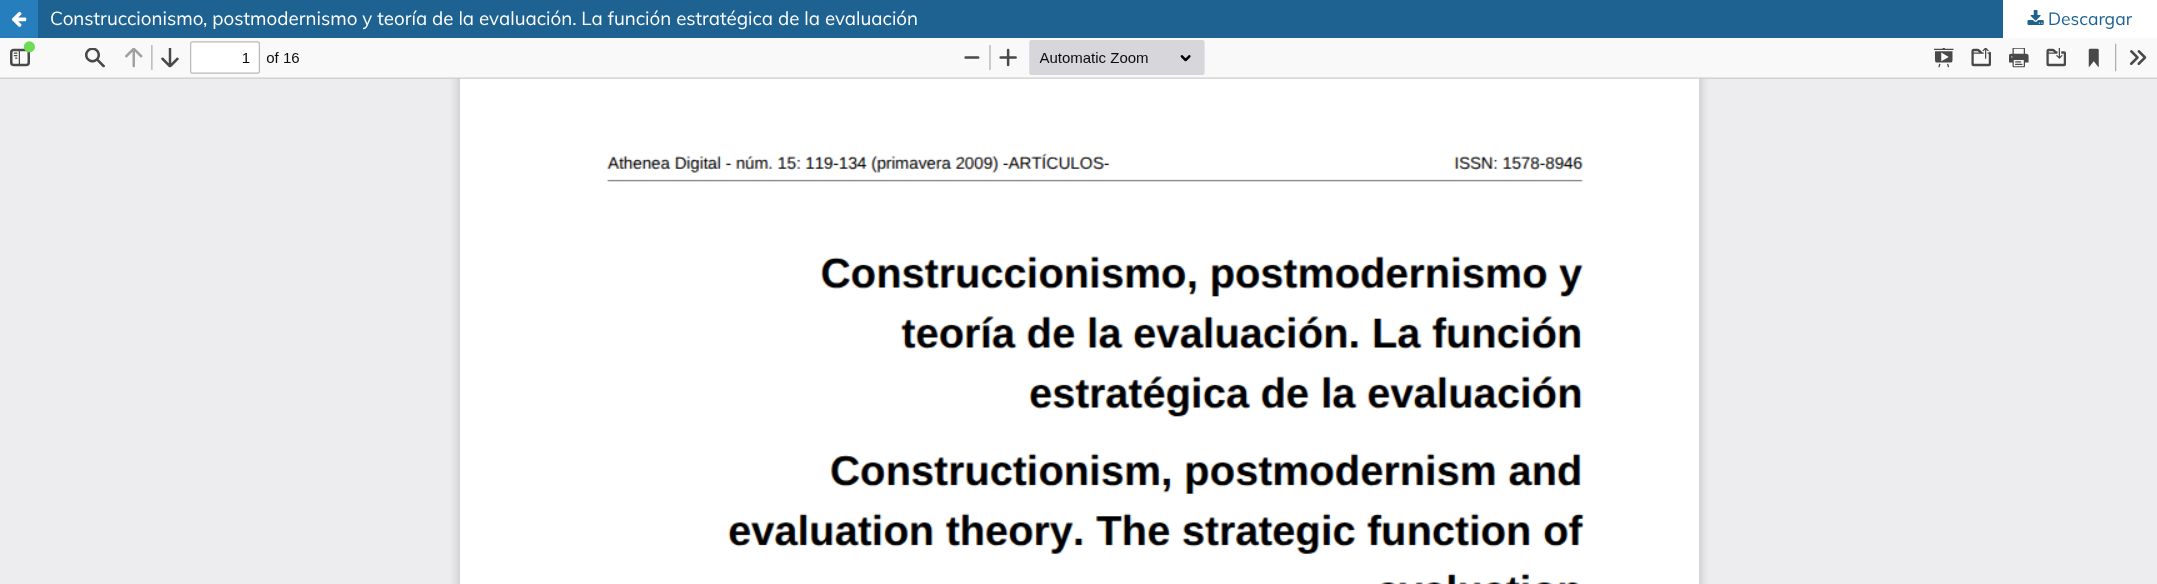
<svg xmlns="http://www.w3.org/2000/svg" width="2157" height="584">
	<rect width="100%" height="100%" fill="#FFFFFF" />
	<rect x="38" y="0" width="1965" height="38" fill="#1E6292" />
	<rect x="0" y="0" width="38" height="38" fill="#277EBC" />
	<image x="11" y="11" width="16" height="16" href="assets/img1.png" />
	<text x="50" y="25" font-family="Muli" font-size="18.75" fill="#FFFFFF">Construccionismo, postmodernismo y teoría de la evaluación. La función estratégica de la evaluación</text>
	<image x="2027" y="10" width="17" height="15" href="assets/img2.png" />
	<text x="2048" y="25" font-family="Muli" font-size="17.5" fill="#1E6292">Descargar</text>
	<image x="0" y="38" width="2157" height="546" href="assets/img3.png" />
</svg>
